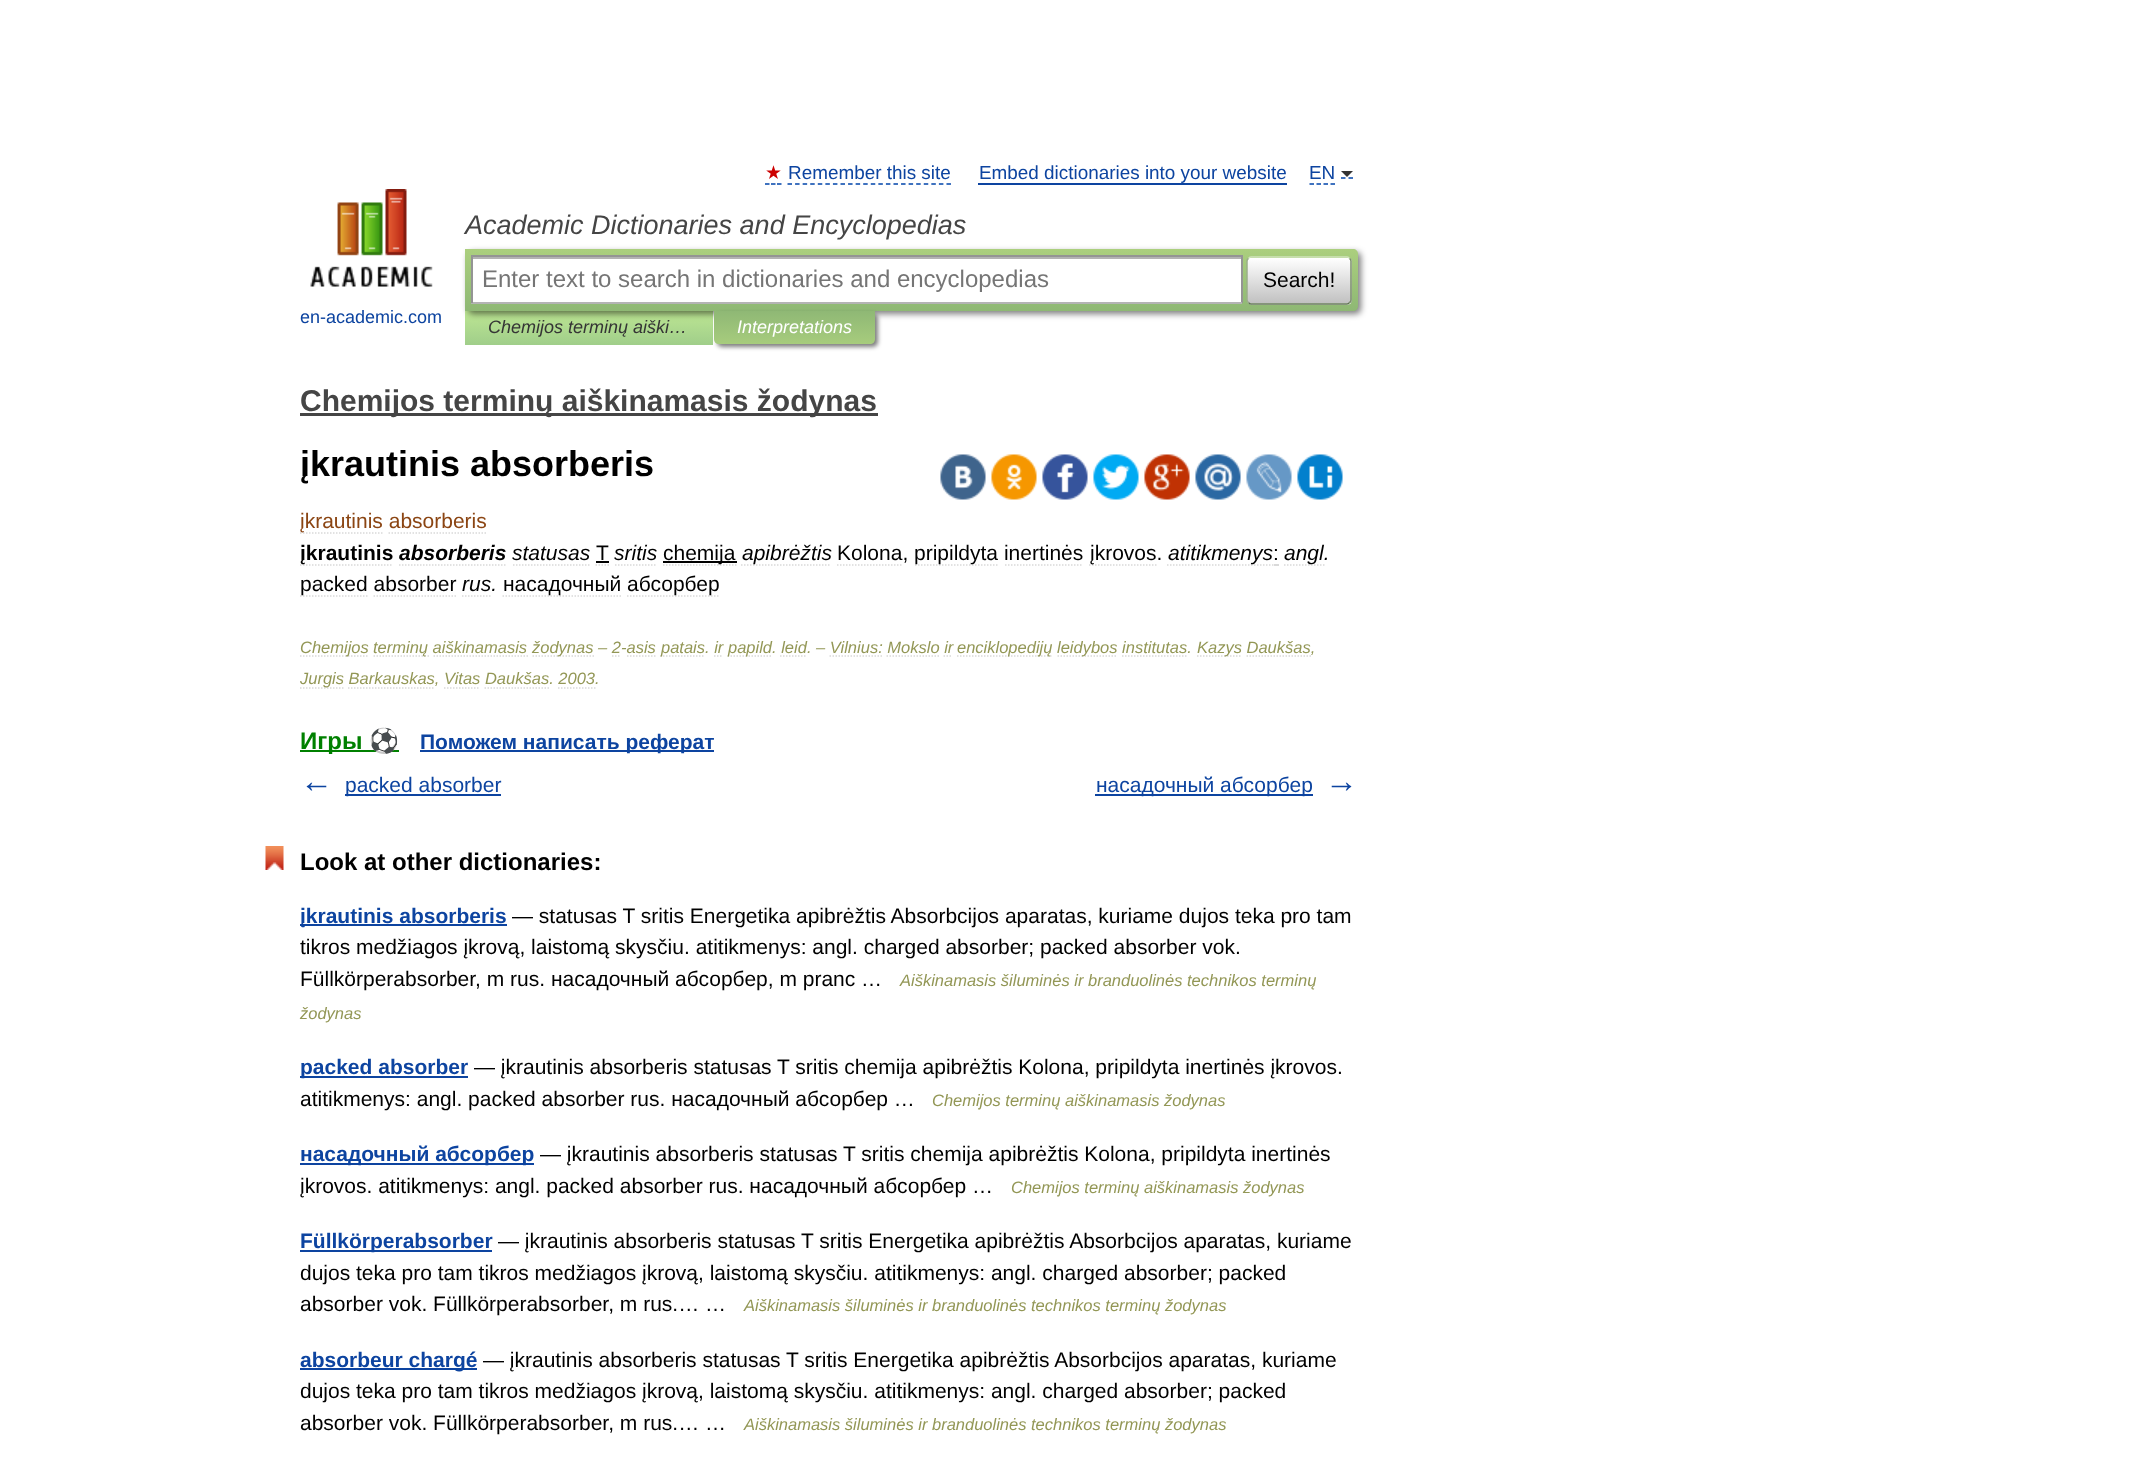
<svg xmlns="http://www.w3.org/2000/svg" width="2130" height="1459">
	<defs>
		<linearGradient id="g1" gradientUnits="userSpaceOnUse" x1="589" y1="311" x2="589" y2="345"><stop offset="0" stop-color="#BDE693" /><stop offset="1" stop-color="#A0CE8A" /></linearGradient>
		<linearGradient id="g2" gradientUnits="userSpaceOnUse" x1="911" y1="249" x2="911" y2="311"><stop offset="0" stop-color="#ABCF7E" /><stop offset="1" stop-color="#8EB874" /></linearGradient>
		<clipPath id="clip1"><rect x="1247" y="257" width="105" height="48" rx="5" /></clipPath>
		<linearGradient id="g3" gradientUnits="userSpaceOnUse" x1="1299" y1="258" x2="1299" y2="303"><stop offset="0" stop-color="#FFFFFF" /><stop offset="1" stop-color="#C1C1C1" /></linearGradient>
		<linearGradient id="g4" gradientUnits="userSpaceOnUse" x1="1299" y1="303" x2="1299" y2="348"><stop offset="0" stop-color="#FFFFFF" /><stop offset="1" stop-color="#C1C1C1" /></linearGradient>
		<linearGradient id="g5" gradientUnits="userSpaceOnUse" x1="794" y1="311" x2="794" y2="344"><stop offset="0" stop-color="#8FB875" /><stop offset="1" stop-color="#A7CC7D" /></linearGradient>
	</defs>
	<rect width="100%" height="100%" fill="#FFFFFF" />
	<text x="765" y="179" font-family="DejaVu Sans" font-size="18.9" fill="#CC0000">★</text>
	<path d="M765 184H769.5M771 184H775.5M777 184H781.5" fill="none" stroke="#0044AA" stroke-width="1.5" />
	<text x="788" y="179" font-family="Liberation Sans" font-size="18.9" fill="#0D44A0">Remember this site</text>
	<path d="M787.5 184H951" fill="none" stroke="#0044AA" stroke-width="1.5" stroke-dasharray="4.5 3.07" />
	<text x="979" y="179" font-family="Liberation Sans" font-size="18.9" fill="#0D44A0">Embed dictionaries into your website</text>
	<rect x="978" y="183" width="309" height="2" fill="#0D44A0" />
	<path d="M1309.5 184H1335" fill="none" stroke="#0044AA" stroke-width="1.5" stroke-dasharray="4.5 2.5" />
	<path d="M1341 178H1345.5M1348.5 178H1353" fill="none" stroke="#0044AA" stroke-width="1.5" />
	<text x="1309" y="179" font-family="Liberation Sans" font-size="18.9" fill="#0D44A0">EN</text>
	<path d="M1341 171H1353L1347 177Z" fill="#333333" />
	<text x="465" y="234" font-family="Liberation Sans" font-size="27" font-style="italic" fill="#454545">Academic Dictionaries and Encyclopedias</text>
	<rect x="465" y="311" width="248" height="34" fill="url(#g1)" />
	<rect x="468" y="252" width="893" height="62" rx="5" fill="#000000" fill-opacity="0.5" filter="blur(3px)" />
	<path d="M465 249H1353C1356 249 1358 251 1358 254V306C1358 309 1356 311 1353 311H465Z" fill="url(#g2)" />
	<rect x="473" y="259" width="768" height="43" fill="#FFFFFF" />
	<rect x="473" y="257" width="768" height="2" fill="#B3B3B3" />
	<rect x="471" y="255" width="771" height="2" fill="#949494" />
	<rect x="1241" y="255" width="2" height="48" fill="#949494" />
	<rect x="471" y="302" width="771" height="2" fill="#B4B4B4" />
	<rect x="471" y="255" width="2" height="48" fill="#949494" />
	<text x="482" y="287" font-family="Liberation Sans" font-size="24" fill="#757575">Enter text to search in dictionaries and encyclopedias</text>
	<g clip-path="url(#clip1)">
		<rect x="1247" y="258" width="105" height="45" fill="url(#g3)" />
		<rect x="1247" y="303" width="105" height="2" fill="url(#g4)" />
	</g>
	<path d="M1248.5 258.5C1249 257.5 1250 257 1251 257H1347C1348 257 1349 257.5 1349.5 258.5" fill="none" stroke="#D1E4BC" stroke-width="1.5" />
	<path d="M1349.5 258.5C1350.5 259 1351 260 1351 261V300C1351 301 1350.5 302 1349.5 302.5" fill="none" stroke="#7A8E69" stroke-width="1.5" />
	<path d="M1349.5 302.5C1349 303.5 1348 304 1347 304H1251C1250 304 1249 303.5 1248.5 302.5" fill="none" stroke="#5D7250" stroke-width="1.5" />
	<path d="M1248.5 302.5C1247.5 302 1247 301 1247 300V261C1247 260 1247.5 259 1248.5 258.5" fill="none" stroke="#9AAE89" stroke-width="1.5" />
	<text x="1263" y="287" font-family="Liberation Sans" font-size="21" fill="#000000">Search!</text>
	<image x="310" y="189" width="123" height="98" href="assets/img1.png" />
	<text x="300" y="323" font-family="Liberation Sans" font-size="18" fill="#0D44A0">en-academic.com</text>
	<text x="488" y="333" font-family="Liberation Sans" font-size="18" font-style="italic" fill="#353535">Chemijos terminų aiški…</text>
	<rect x="717" y="314" width="161" height="33" rx="5" fill="#000000" fill-opacity="0.5" filter="blur(2px)" />
	<path d="M714 311H875V339C875 342 873 344 870 344H719C716 344 714 342 714 339Z" fill="url(#g5)" />
	<text x="737" y="333" font-family="Liberation Sans" font-size="18" font-style="italic" fill="#FFFFFF">Interpretations</text>
	<rect x="300" y="413" width="578" height="3" fill="#454545" />
	<text x="300" y="411" font-family="Liberation Sans" font-size="30" font-weight="700" fill="#454545">Chemijos terminų aiškinamasis žodynas</text>
	<text x="300" y="476" font-family="Liberation Sans" font-size="36" font-weight="700" fill="#000000">įkrautinis absorberis</text>
	<image x="940" y="454" width="46" height="46" href="assets/img2.png" />
	<image x="991" y="454" width="46" height="46" href="assets/img3.png" />
	<image x="1042" y="454" width="46" height="46" href="assets/img4.png" />
	<image x="1093" y="454" width="46" height="46" href="assets/img5.png" />
	<image x="1144" y="454" width="46" height="46" href="assets/img6.png" />
	<image x="1195" y="454" width="46" height="46" href="assets/img7.png" />
	<image x="1246" y="454" width="46" height="46" href="assets/img8.png" />
	<image x="1297" y="454" width="46" height="46" href="assets/img9.png" />
	<path d="M300 533H382.5" fill="none" stroke="#D9D9D9" stroke-width="1.5" stroke-dasharray="1.5 1.5" />
	<text x="300" y="528" font-family="Liberation Sans" font-size="21" fill="#8B4513">įkrautinis absorberis</text>
	<path d="M388.5 533H487.5" fill="none" stroke="#D9D9D9" stroke-width="1.5" stroke-dasharray="1.5 1.5" />
	<path d="M300 565H393" fill="none" stroke="#D9D9D9" stroke-width="1.5" stroke-dasharray="1.5 1.5" />
	<text x="300" y="560" font-family="Liberation Sans" font-size="21" font-weight="700" fill="#000000">įkrautinis</text>
	<text x="399" y="560" font-family="Liberation Sans" font-size="21" font-weight="700" font-style="italic" fill="#000000">absorberis</text>
	<path d="M399 565H507" fill="none" stroke="#D9D9D9" stroke-width="1.5" stroke-dasharray="1.5 1.5" />
	<text x="512" y="560" font-family="Liberation Sans" font-size="21" font-style="italic" fill="#000000">statusas</text>
	<path d="M513 565H591" fill="none" stroke="#D9D9D9" stroke-width="1.5" stroke-dasharray="1.5 1.5" />
	<text x="596" y="560" font-family="Liberation Sans" font-size="21" fill="#000000">T</text>
	<path d="M595.5 565H609" fill="none" stroke="#D9D9D9" stroke-width="1.5" stroke-dasharray="1.5 1.5" />
	<rect x="596" y="561" width="13" height="2" fill="#000000" />
	<text x="614" y="560" font-family="Liberation Sans" font-size="21" font-style="italic" fill="#000000">sritis</text>
	<path d="M615 565H657" fill="none" stroke="#D9D9D9" stroke-width="1.5" stroke-dasharray="1.5 1.5" />
	<path d="M663 565H736.5" fill="none" stroke="#D9D9D9" stroke-width="1.5" stroke-dasharray="1.5 1.5" />
	<rect x="663" y="561" width="74" height="2" fill="#000000" />
	<text x="663" y="560" font-family="Liberation Sans" font-size="21" fill="#000000">chemija</text>
	<path d="M741 565H831" fill="none" stroke="#D9D9D9" stroke-width="1.5" stroke-dasharray="1.5 1.5" />
	<text x="742" y="560" font-family="Liberation Sans" font-size="21" font-style="italic" fill="#000000">apibrėžtis</text>
	<text x="837" y="560" font-family="Liberation Sans" font-size="21" fill="#000000">Kolona,</text>
	<path d="M837 565H903" fill="none" stroke="#D9D9D9" stroke-width="1.5" stroke-dasharray="1.5 1.5" />
	<path d="M915 565H999" fill="none" stroke="#D9D9D9" stroke-width="1.5" stroke-dasharray="1.5 1.5" />
	<text x="914" y="560" font-family="Liberation Sans" font-size="21" fill="#000000">pripildyta inertinės</text>
	<path d="M1089 565H1156.5" fill="none" stroke="#D9D9D9" stroke-width="1.5" stroke-dasharray="1.5 1.5" />
	<text x="1090" y="560" font-family="Liberation Sans" font-size="21" fill="#000000">įkrovos.</text>
	<path d="M1167 565H1273.5" fill="none" stroke="#D9D9D9" stroke-width="1.5" stroke-dasharray="1.5 1.5" />
	<text x="1168" y="560" font-family="Liberation Sans" font-size="21" font-style="italic" fill="#000000">atitikmenys</text>
	<text x="1273" y="560" font-family="Liberation Sans" font-size="21" fill="#000000">:</text>
	<rect x="1274" y="564" width="5" height="2" fill="#D9D9D9" />
	<path d="M1284 565H1324.5" fill="none" stroke="#D9D9D9" stroke-width="1.5" stroke-dasharray="1.5 1.5" />
	<text x="1284" y="560" font-family="Liberation Sans" font-size="21" font-style="italic" fill="#000000">angl.</text>
	<path d="M1005 565H1083" fill="none" stroke="#D9D9D9" stroke-width="1.5" stroke-dasharray="1.5 1.5" />
	<path d="M300 596H367.5" fill="none" stroke="#D9D9D9" stroke-width="1.5" stroke-dasharray="1.5 1.5" />
	<text x="300" y="591" font-family="Liberation Sans" font-size="21" fill="#000000">packed absorber</text>
	<text x="462" y="591" font-family="Liberation Sans" font-size="21" font-style="italic" fill="#000000">rus.</text>
	<path d="M462 596H492" fill="none" stroke="#D9D9D9" stroke-width="1.5" stroke-dasharray="1.5 1.5" />
	<path d="M502.5 596H621" fill="none" stroke="#D9D9D9" stroke-width="1.5" stroke-dasharray="1.5 1.5" />
	<text x="503" y="591" font-family="Liberation Sans" font-size="21" fill="#000000">насадочный</text>
	<path d="M627 596H720" fill="none" stroke="#D9D9D9" stroke-width="1.5" stroke-dasharray="1.5 1.5" />
	<text x="627" y="591" font-family="Liberation Sans" font-size="21" fill="#000000">абсорбер</text>
	<path d="M373.5 596H456" fill="none" stroke="#D9D9D9" stroke-width="1.5" stroke-dasharray="1.5 1.5" />
	<path d="M300 656H369" fill="none" stroke="#D9D9D9" stroke-width="1.5" stroke-dasharray="1.5 1.5" />
	<text x="300" y="653" font-family="Liberation Sans" font-size="16.5" font-style="italic" fill="#939756">Chemijos</text>
	<path d="M373.5 656H429" fill="none" stroke="#D9D9D9" stroke-width="1.5" stroke-dasharray="1.5 1.5" />
	<text x="373" y="653" font-family="Liberation Sans" font-size="16.5" font-style="italic" fill="#939756">terminų aiškinamasis</text>
	<path d="M433.5 656H528" fill="none" stroke="#D9D9D9" stroke-width="1.5" stroke-dasharray="1.5 1.5" />
	<path d="M532.5 656H594" fill="none" stroke="#D9D9D9" stroke-width="1.5" stroke-dasharray="1.5 1.5" />
	<text x="532" y="653" font-family="Liberation Sans" font-size="16.5" font-style="italic" fill="#939756">žodynas – 2-asis</text>
	<path d="M612 656H613.5M615 656H616.5M618 656H619.5" fill="none" stroke="#D9D9D9" stroke-width="1.5" />
	<path d="M627 656H655.5" fill="none" stroke="#D9D9D9" stroke-width="1.5" stroke-dasharray="1.5 1.5" />
	<path d="M660 656H705" fill="none" stroke="#D9D9D9" stroke-width="1.5" stroke-dasharray="1.5 1.5" />
	<text x="661" y="653" font-family="Liberation Sans" font-size="16.5" font-style="italic" fill="#939756">patais. ir</text>
	<path d="M714 656H715.5M717 656H718.5M720 656H721.5" fill="none" stroke="#D9D9D9" stroke-width="1.5" />
	<path d="M727.5 656H771" fill="none" stroke="#D9D9D9" stroke-width="1.5" stroke-dasharray="1.5 1.5" />
	<text x="728" y="653" font-family="Liberation Sans" font-size="16.5" font-style="italic" fill="#939756">papild. leid. – Vilnius: Mokslo ir</text>
	<path d="M780 656H807" fill="none" stroke="#D9D9D9" stroke-width="1.5" stroke-dasharray="1.5 1.5" />
	<path d="M829.5 656H882" fill="none" stroke="#D9D9D9" stroke-width="1.5" stroke-dasharray="1.5 1.5" />
	<path d="M886.5 656H939" fill="none" stroke="#D9D9D9" stroke-width="1.5" stroke-dasharray="1.5 1.5" />
	<path d="M943.5 656H945M946.5 656H948M949.5 656H951" fill="none" stroke="#D9D9D9" stroke-width="1.5" />
	<path d="M957 656H1053" fill="none" stroke="#D9D9D9" stroke-width="1.5" stroke-dasharray="1.5 1.5" />
	<text x="957" y="653" font-family="Liberation Sans" font-size="16.5" font-style="italic" fill="#939756">enciklopedijų</text>
	<path d="M1057.5 656H1117.5" fill="none" stroke="#D9D9D9" stroke-width="1.5" stroke-dasharray="1.5 1.5" />
	<text x="1057" y="653" font-family="Liberation Sans" font-size="16.5" font-style="italic" fill="#939756">leidybos institutas.</text>
	<path d="M1122 656H1188" fill="none" stroke="#D9D9D9" stroke-width="1.5" stroke-dasharray="1.5 1.5" />
	<path d="M1197 656H1242" fill="none" stroke="#D9D9D9" stroke-width="1.5" stroke-dasharray="1.5 1.5" />
	<text x="1197" y="653" font-family="Liberation Sans" font-size="16.5" font-style="italic" fill="#939756">Kazys Daukšas,</text>
	<path d="M1246.5 656H1311" fill="none" stroke="#D9D9D9" stroke-width="1.5" stroke-dasharray="1.5 1.5" />
	<path d="M300 688H343.5" fill="none" stroke="#D9D9D9" stroke-width="1.5" stroke-dasharray="1.5 1.5" />
	<text x="300" y="684" font-family="Liberation Sans" font-size="16.5" font-style="italic" fill="#939756">Jurgis Barkauskas, Vitas Daukšas. 2003.</text>
	<path d="M348 688H435" fill="none" stroke="#D9D9D9" stroke-width="1.5" stroke-dasharray="1.5 1.5" />
	<path d="M444 688H480" fill="none" stroke="#D9D9D9" stroke-width="1.5" stroke-dasharray="1.5 1.5" />
	<path d="M484.5 688H549" fill="none" stroke="#D9D9D9" stroke-width="1.5" stroke-dasharray="1.5 1.5" />
	<path d="M558 688H595.5" fill="none" stroke="#D9D9D9" stroke-width="1.5" stroke-dasharray="1.5 1.5" />
	<rect x="300" y="750" width="99" height="2" fill="#008000" />
	<text x="300" y="749" font-family="Liberation Sans" font-size="24" font-weight="700" fill="#008000">Игры</text>
	<text x="369" y="749" font-family="Noto Color Emoji" font-size="24" font-weight="700" fill="#008000">⚽</text>
	<rect x="420" y="750" width="294" height="2" fill="#0D44A0" />
	<text x="420" y="749" font-family="Liberation Sans" font-size="21" font-weight="700" fill="#0D44A0">Поможем написать реферат</text>
	<text x="300" y="792" font-family="Liberation Sans" font-size="33" font-weight="700" fill="#0D44A0">←</text>
	<rect x="345" y="794" width="156" height="2" fill="#0D44A0" />
	<text x="345" y="792" font-family="Liberation Sans" font-size="21" fill="#0D44A0">packed absorber</text>
	<rect x="1095" y="794" width="218" height="2" fill="#0D44A0" />
	<text x="1096" y="792" font-family="Liberation Sans" font-size="21" fill="#0D44A0">насадочный абсорбер</text>
	<text x="1325" y="792" font-family="Liberation Sans" font-size="33" font-weight="700" fill="#0D44A0">→</text>
	<image x="265" y="846" width="19" height="24" href="assets/img10.png" />
	<text x="300" y="870" font-family="Liberation Sans" font-size="24" font-weight="700" fill="#000000">Look at other dictionaries:</text>
	<rect x="300" y="924" width="207" height="2" fill="#0D44A0" />
	<text x="300" y="923" font-family="Liberation Sans" font-size="21" font-weight="700" fill="#0D44A0">įkrautinis absorberis</text>
	<g font-family="Liberation Sans" font-size="21" fill="#000000">
		<text x="512" y="923">— statusas T sritis Energetika apibrėžtis Absorbcijos aparatas, kuriame dujos teka pro tam</text>
		<text x="300" y="954">tikros medžiagos įkrovą, laistomą skysčiu. atitikmenys: angl. charged absorber; packed absorber vok.</text>
		<text x="300" y="986">Füllkörperabsorber, m rus. насадочный абсорбер, m pranc …</text>
	</g>
	<g font-family="Liberation Sans" font-size="16.5" font-style="italic" fill="#939756">
		<text x="900" y="986">Aiškinamasis šiluminės ir branduolinės technikos terminų</text>
		<text x="300" y="1019">žodynas</text>
	</g>
	<rect x="300" y="1076" width="168" height="2" fill="#0D44A0" />
	<text x="300" y="1074" font-family="Liberation Sans" font-size="21" font-weight="700" fill="#0D44A0">packed absorber</text>
	<g font-family="Liberation Sans" font-size="21" fill="#000000">
		<text x="474" y="1074">— įkrautinis absorberis statusas T sritis chemija apibrėžtis Kolona, pripildyta inertinės įkrovos.</text>
		<text x="300" y="1106">atitikmenys: angl. packed absorber rus. насадочный абсорбер …</text>
	</g>
	<text x="932" y="1106" font-family="Liberation Sans" font-size="16.5" font-style="italic" fill="#939756">Chemijos terminų aiškinamasis žodynas</text>
	<rect x="300" y="1163" width="234" height="2" fill="#0D44A0" />
	<text x="300" y="1161" font-family="Liberation Sans" font-size="21" font-weight="700" fill="#0D44A0">насадочный абсорбер</text>
	<g font-family="Liberation Sans" font-size="21" fill="#000000">
		<text x="540" y="1161">— įkrautinis absorberis statusas T sritis chemija apibrėžtis Kolona, pripildyta inertinės</text>
		<text x="300" y="1193">įkrovos. atitikmenys: angl. packed absorber rus. насадочный абсорбер …</text>
	</g>
	<text x="1011" y="1193" font-family="Liberation Sans" font-size="16.5" font-style="italic" fill="#939756">Chemijos terminų aiškinamasis žodynas</text>
	<rect x="300" y="1250" width="192" height="2" fill="#0D44A0" />
	<text x="300" y="1248" font-family="Liberation Sans" font-size="21" font-weight="700" fill="#0D44A0">Füllkörperabsorber</text>
	<g font-family="Liberation Sans" font-size="21" fill="#000000">
		<text x="498" y="1248">— įkrautinis absorberis statusas T sritis Energetika apibrėžtis Absorbcijos aparatas, kuriame</text>
		<text x="300" y="1280">dujos teka pro tam tikros medžiagos įkrovą, laistomą skysčiu. atitikmenys: angl. charged absorber; packed</text>
		<text x="300" y="1311">absorber vok. Füllkörperabsorber, m rus.… …</text>
	</g>
	<text x="744" y="1311" font-family="Liberation Sans" font-size="16.5" font-style="italic" fill="#939756">Aiškinamasis šiluminės ir branduolinės technikos terminų žodynas</text>
	<rect x="300" y="1368" width="177" height="2" fill="#0D44A0" />
	<text x="300" y="1367" font-family="Liberation Sans" font-size="21" font-weight="700" fill="#0D44A0">absorbeur chargé</text>
	<g font-family="Liberation Sans" font-size="21" fill="#000000">
		<text x="483" y="1367">— įkrautinis absorberis statusas T sritis Energetika apibrėžtis Absorbcijos aparatas, kuriame</text>
		<text x="300" y="1398">dujos teka pro tam tikros medžiagos įkrovą, laistomą skysčiu. atitikmenys: angl. charged absorber; packed</text>
		<text x="300" y="1430">absorber vok. Füllkörperabsorber, m rus.… …</text>
	</g>
	<text x="744" y="1430" font-family="Liberation Sans" font-size="16.5" font-style="italic" fill="#939756">Aiškinamasis šiluminės ir branduolinės technikos terminų žodynas</text>
</svg>
